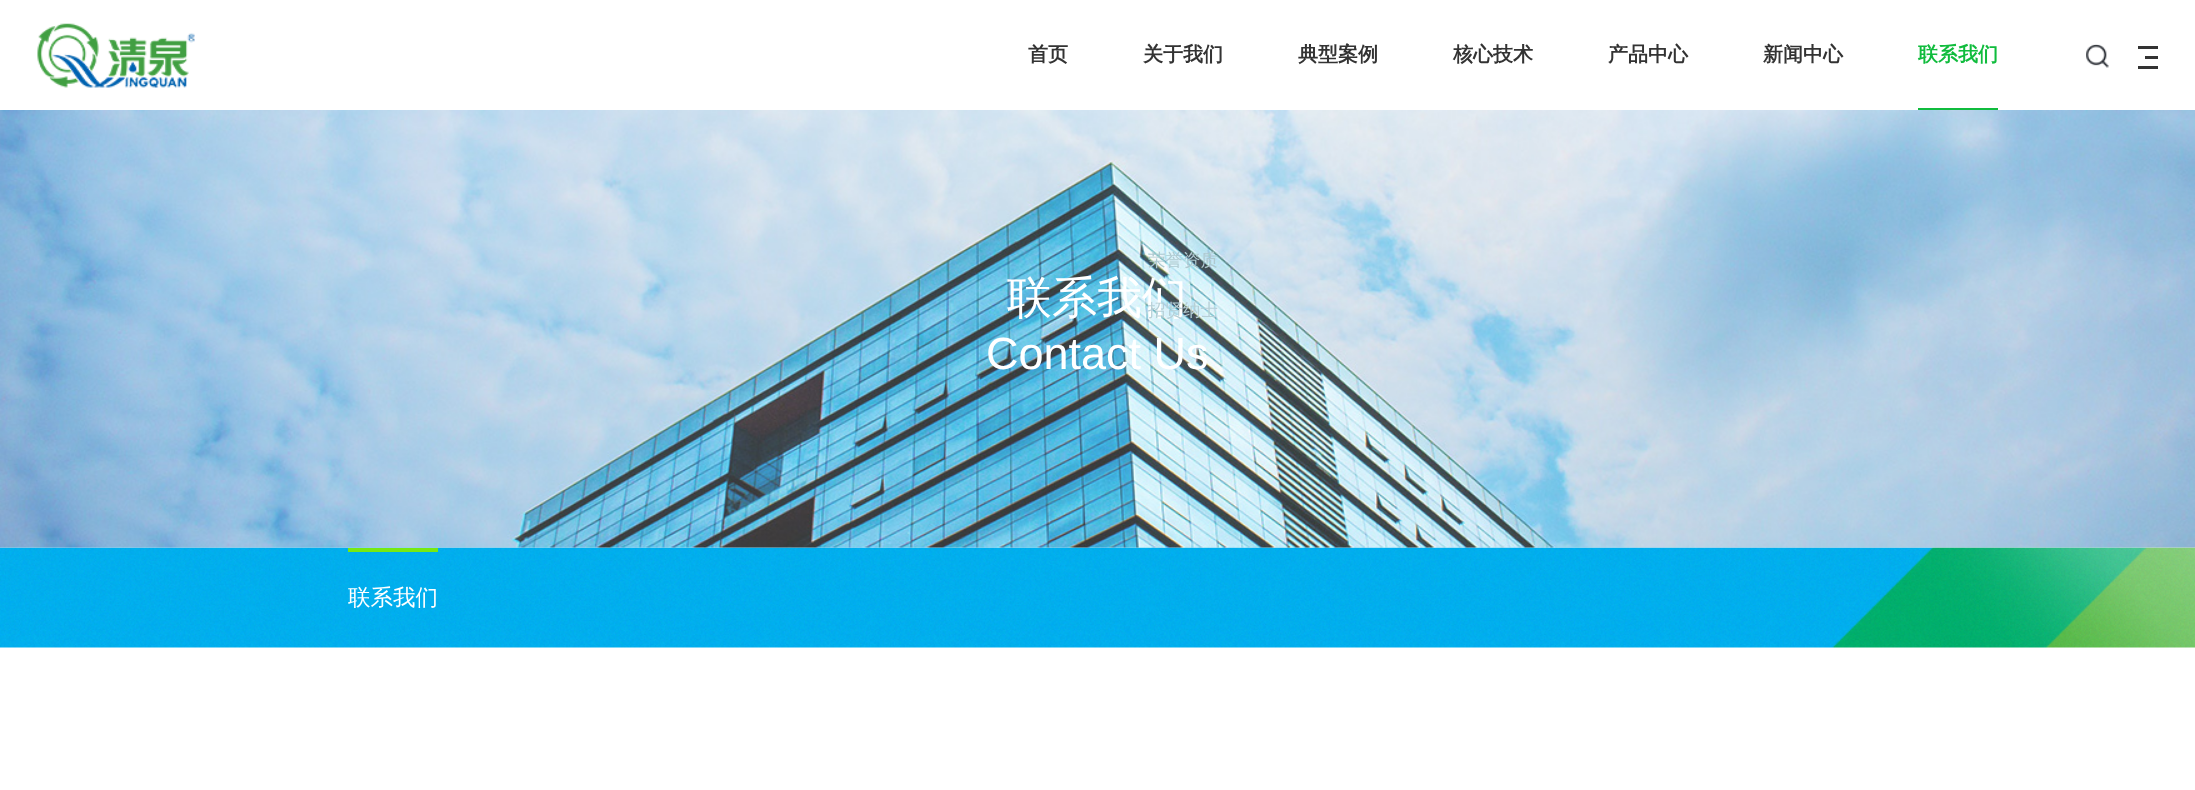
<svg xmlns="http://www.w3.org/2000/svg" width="2195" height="790">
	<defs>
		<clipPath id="clip1"><rect x="348" y="548" width="1500" height="100" /></clipPath>
	</defs>
	<rect width="100%" height="100%" fill="#FFFFFF" />
	<image x="37" y="23" width="158" height="65" href="assets/img1.png" />
	<g font-family="WenQuanYi Zen Hei" font-size="20" font-weight="700" fill="#333333">
		<text x="1028" y="61">首页</text>
		<text x="1143" y="61">关于我们</text>
	</g>
	<image x="0" y="547" width="2195" height="101" href="assets/img4.png" />
	<image x="0" y="110" width="2195" height="438" href="assets/img3.png" />
	<text x="1148" y="266" font-family="WenQuanYi Zen Hei" font-size="17.5" font-weight="500" fill="#AEC9D0">荣誉资质</text>
	<text x="1007" y="313" font-family="WenQuanYi Zen Hei" font-size="45" font-weight="500" fill="#FFFFFF">联系我们</text>
	<text x="1148" y="316" font-family="WenQuanYi Zen Hei" font-size="17.5" font-weight="500" fill="#B6CFD6">招贤纳士</text>
	<g font-family="WenQuanYi Zen Hei" font-size="20" font-weight="700" fill="#333333">
		<text x="1298" y="61">典型案例</text>
		<text x="1453" y="61">核心技术</text>
		<text x="1608" y="61">产品中心</text>
		<text x="1763" y="61">新闻中心</text>
	</g>
	<text x="1918" y="61" font-family="WenQuanYi Zen Hei" font-size="20" font-weight="700" fill="#10BC3D">联系我们</text>
	<rect x="1918" y="108" width="80" height="2" fill="#10BC3D" />
	<image x="2086" y="44" width="23" height="24" href="assets/img2.png" />
	<rect x="2138" y="46" width="20" height="3" fill="#333333" />
	<rect x="2145" y="56" width="13" height="3" fill="#333333" />
	<rect x="2138" y="66" width="20" height="3" fill="#333333" />
	<text x="986" y="369" font-family="Liberation Sans" font-size="45" fill="#FFFFFF">Contact Us</text>
	<rect x="348" y="548" width="90" height="4" fill="#77E911" />
	<g clip-path="url(#clip1)">
		<text x="348" y="605" font-family="WenQuanYi Zen Hei" font-size="22.5" font-weight="500" fill="#FFFFFF">联系我们</text>
	</g>
</svg>
